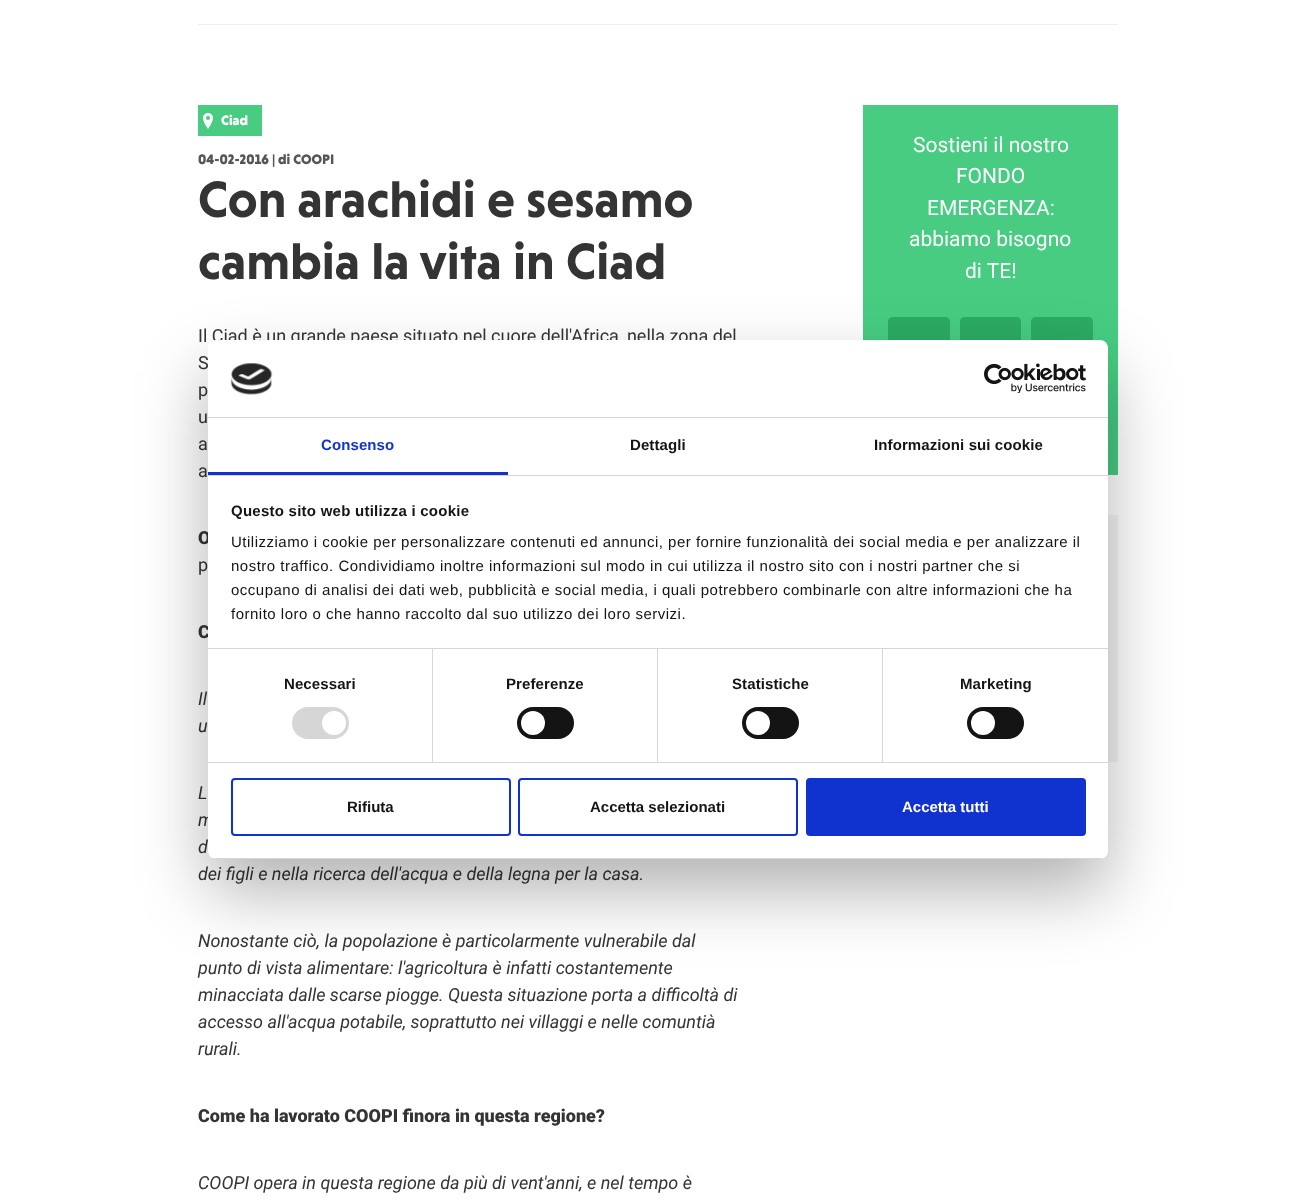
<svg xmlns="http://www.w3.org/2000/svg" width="1316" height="1200">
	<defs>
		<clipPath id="clip1"><rect x="208" y="340" width="900" height="519" rx="8" /></clipPath>
	</defs>
	<rect width="100%" height="100%" fill="#FFFFFF" />
	<rect x="198" y="24" width="920" height="1" fill="#EEEEEE" />
	<rect x="198" y="105" width="64" height="31" fill="#47CC82" />
	<image x="203" y="113" width="10" height="16" href="assets/img1.png" />
	<text x="221" y="125" font-family="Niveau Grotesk" font-size="14" font-weight="900" fill="#FFFFFF">Ciad</text>
	<text x="198" y="164" font-family="Niveau Grotesk" font-size="14" font-weight="900" fill="#565656">04-02-2016 | di COOPI</text>
	<g font-family="Niveau Grotesk" font-size="52" font-weight="700" fill="#343434">
		<text x="198" y="217">Con arachidi e sesamo</text>
		<text x="198" y="279">cambia la vita in Ciad</text>
	</g>
	<g font-family="Roboto" font-size="18" fill="#343434">
		<text x="198" y="342">Il Ciad è un grande paese situato nel cuore dell'Africa, nella zona del</text>
		<text x="198" y="369">S</text>
		<text x="198" y="396">p</text>
		<text x="198" y="423">u</text>
		<text x="198" y="450">a</text>
		<text x="198" y="477">a</text>
	</g>
	<text x="198" y="544" font-family="Roboto" font-size="18" font-weight="900" fill="#343434">O</text>
	<text x="198" y="571" font-family="Roboto" font-size="18" fill="#343434">p</text>
	<text x="198" y="638" font-family="Roboto" font-size="18" font-weight="900" fill="#343434">C</text>
	<g font-family="Roboto" font-size="18" font-style="italic" fill="#343434">
		<text x="198" y="705">Il</text>
		<text x="198" y="732">u</text>
		<text x="198" y="799">L</text>
		<text x="198" y="826">m</text>
		<text x="198" y="853">d</text>
		<text x="198" y="880">dei figli e nella ricerca dell'acqua e della legna per la casa.</text>
		<text x="198" y="947">Nonostante ciò, la popolazione è particolarmente vulnerabile dal</text>
		<text x="198" y="974">punto di vista alimentare: l'agricoltura è infatti costantemente</text>
		<text x="198" y="1001">minacciata dalle scarse piogge. Questa situazione porta a difficoltà di</text>
		<text x="198" y="1028">accesso all'acqua potabile, soprattutto nei villaggi e nelle comuntià</text>
		<text x="198" y="1055">rurali.</text>
	</g>
	<text x="198" y="1122" font-family="Roboto" font-size="18" font-weight="900" fill="#343434">Come ha lavorato COOPI finora in questa regione?</text>
	<text x="198" y="1189" font-family="Roboto" font-size="18" font-style="italic" fill="#343434">COOPI opera in questa regione da più di vent'anni, e nel tempo è</text>
	<rect x="863" y="105" width="255" height="370" fill="#47CC82" />
	<g font-family="Roboto" font-size="21" fill="#FFFFFF">
		<text x="913" y="152">Sostieni il nostro</text>
		<text x="956" y="183">FONDO</text>
		<text x="927" y="215">EMERGENZA:</text>
		<text x="909" y="246">abbiamo bisogno</text>
		<text x="965" y="278">di TE!</text>
	</g>
	<rect x="888" y="317" width="62" height="50" rx="5" fill="#2CAB64" />
	<rect x="888" y="317" width="62" height="50" rx="5" fill="#2CAB64" fill-opacity="0.5" />
	<rect x="960" y="317" width="61" height="50" rx="5" fill="#2CAB64" />
	<rect x="960" y="317" width="61" height="50" rx="5" fill="#2CAB64" fill-opacity="0.5" />
	<rect x="1031" y="317" width="62" height="50" rx="5" fill="#2CAB64" />
	<rect x="1031" y="317" width="62" height="50" rx="5" fill="#2CAB64" fill-opacity="0.5" />
	<rect x="1108" y="515" width="10" height="247" fill="#F4F4F4" />
	<rect x="208" y="372" width="900" height="519" rx="8" fill="#000000" fill-opacity="0.3" filter="blur(34px)" />
	<rect x="208" y="340" width="900" height="519" rx="8" fill="#FFFFFF" />
	<rect x="208" y="417" width="900" height="1" fill="#D6D6D6" />
	<image x="230" y="363" width="43" height="32" href="assets/img2.png" />
	<image x="984" y="363" width="102" height="30" href="assets/img3.png" />
	<rect x="208" y="475" width="900" height="1" fill="#D6D6D6" />
	<rect x="208" y="472" width="300" height="3" fill="#1032CF" />
	<text x="321" y="450" font-family="Liberation Sans" font-size="15" font-weight="700" letter-spacing="0.1" fill="#1032CF">Consenso</text>
	<g font-family="Liberation Sans" font-size="15" font-weight="700" letter-spacing="0.1" fill="#141414">
		<text x="630" y="450">Dettagli</text>
		<text x="874" y="450">Informazioni sui cookie</text>
	</g>
	<rect x="208" y="648" width="900" height="1" fill="#D6D6D6" />
	<text x="231" y="516" font-family="Liberation Sans" font-size="15" font-weight="700" letter-spacing="0.25" fill="#141414">Questo sito web utilizza i cookie</text>
	<g font-family="Liberation Sans" font-size="15" letter-spacing="0.5" fill="#141414">
		<text x="231" y="547">Utilizziamo i cookie per personalizzare contenuti ed annunci, per fornire funzionalità dei social media e per analizzare il</text>
		<text x="231" y="571">nostro traffico. Condividiamo inoltre informazioni sul modo in cui utilizza il nostro sito con i nostri partner che si</text>
		<text x="231" y="595">occupano di analisi dei dati web, pubblicità e social media, i quali potrebbero combinarle con altre informazioni che ha</text>
		<text x="231" y="619">fornito loro o che hanno raccolto dal suo utilizzo dei loro servizi.</text>
	</g>
	<rect x="208" y="762" width="900" height="1" fill="#D6D6D6" />
	<rect x="432" y="649" width="1" height="113" fill="#D6D6D6" />
	<text x="284" y="689" font-family="Liberation Sans" font-size="15" font-weight="700" letter-spacing="0.1" fill="#141414">Necessari</text>
	<rect x="292" y="707" width="57" height="32" rx="16" fill="#D6D6D6" />
	<circle cx="334" cy="723" r="12" fill="#FFFFFF" />
	<rect x="657" y="649" width="1" height="113" fill="#D6D6D6" />
	<text x="506" y="689" font-family="Liberation Sans" font-size="15" font-weight="700" letter-spacing="0.1" fill="#141414">Preferenze</text>
	<rect x="517" y="707" width="57" height="32" rx="16" fill="#141414" />
	<circle cx="533" cy="723" r="12" fill="#FFFFFF" />
	<rect x="882" y="649" width="1" height="113" fill="#D6D6D6" />
	<text x="732" y="689" font-family="Liberation Sans" font-size="15" font-weight="700" letter-spacing="0.1" fill="#141414">Statistiche</text>
	<rect x="742" y="707" width="57" height="32" rx="16" fill="#141414" />
	<circle cx="758" cy="723" r="12" fill="#FFFFFF" />
	<text x="960" y="689" font-family="Liberation Sans" font-size="15" font-weight="700" letter-spacing="0.1" fill="#141414">Marketing</text>
	<rect x="967" y="707" width="57" height="32" rx="16" fill="#141414" />
	<circle cx="983" cy="723" r="12" fill="#FFFFFF" />
	<g clip-path="url(#clip1)">
		<rect x="208" y="858" width="900" height="1" fill="#D6D6D6" />
	</g>
	<rect x="232" y="779" width="278" height="56" rx="3" fill="none" stroke="#1032CF" stroke-width="2" />
	<text x="347" y="812" font-family="Liberation Sans" font-size="15" font-weight="700" fill="#141414">Rifiuta</text>
	<rect x="519" y="779" width="278" height="56" rx="3" fill="none" stroke="#1032CF" stroke-width="2" />
	<text x="590" y="812" font-family="Liberation Sans" font-size="15" font-weight="700" fill="#141414">Accetta selezionati</text>
	<rect x="807" y="779" width="278" height="56" rx="3" fill="#1032CF" stroke="#1032CF" stroke-width="2" />
	<text x="902" y="812" font-family="Liberation Sans" font-size="15" font-weight="700" fill="#FFFFFF">Accetta tutti</text>
</svg>
